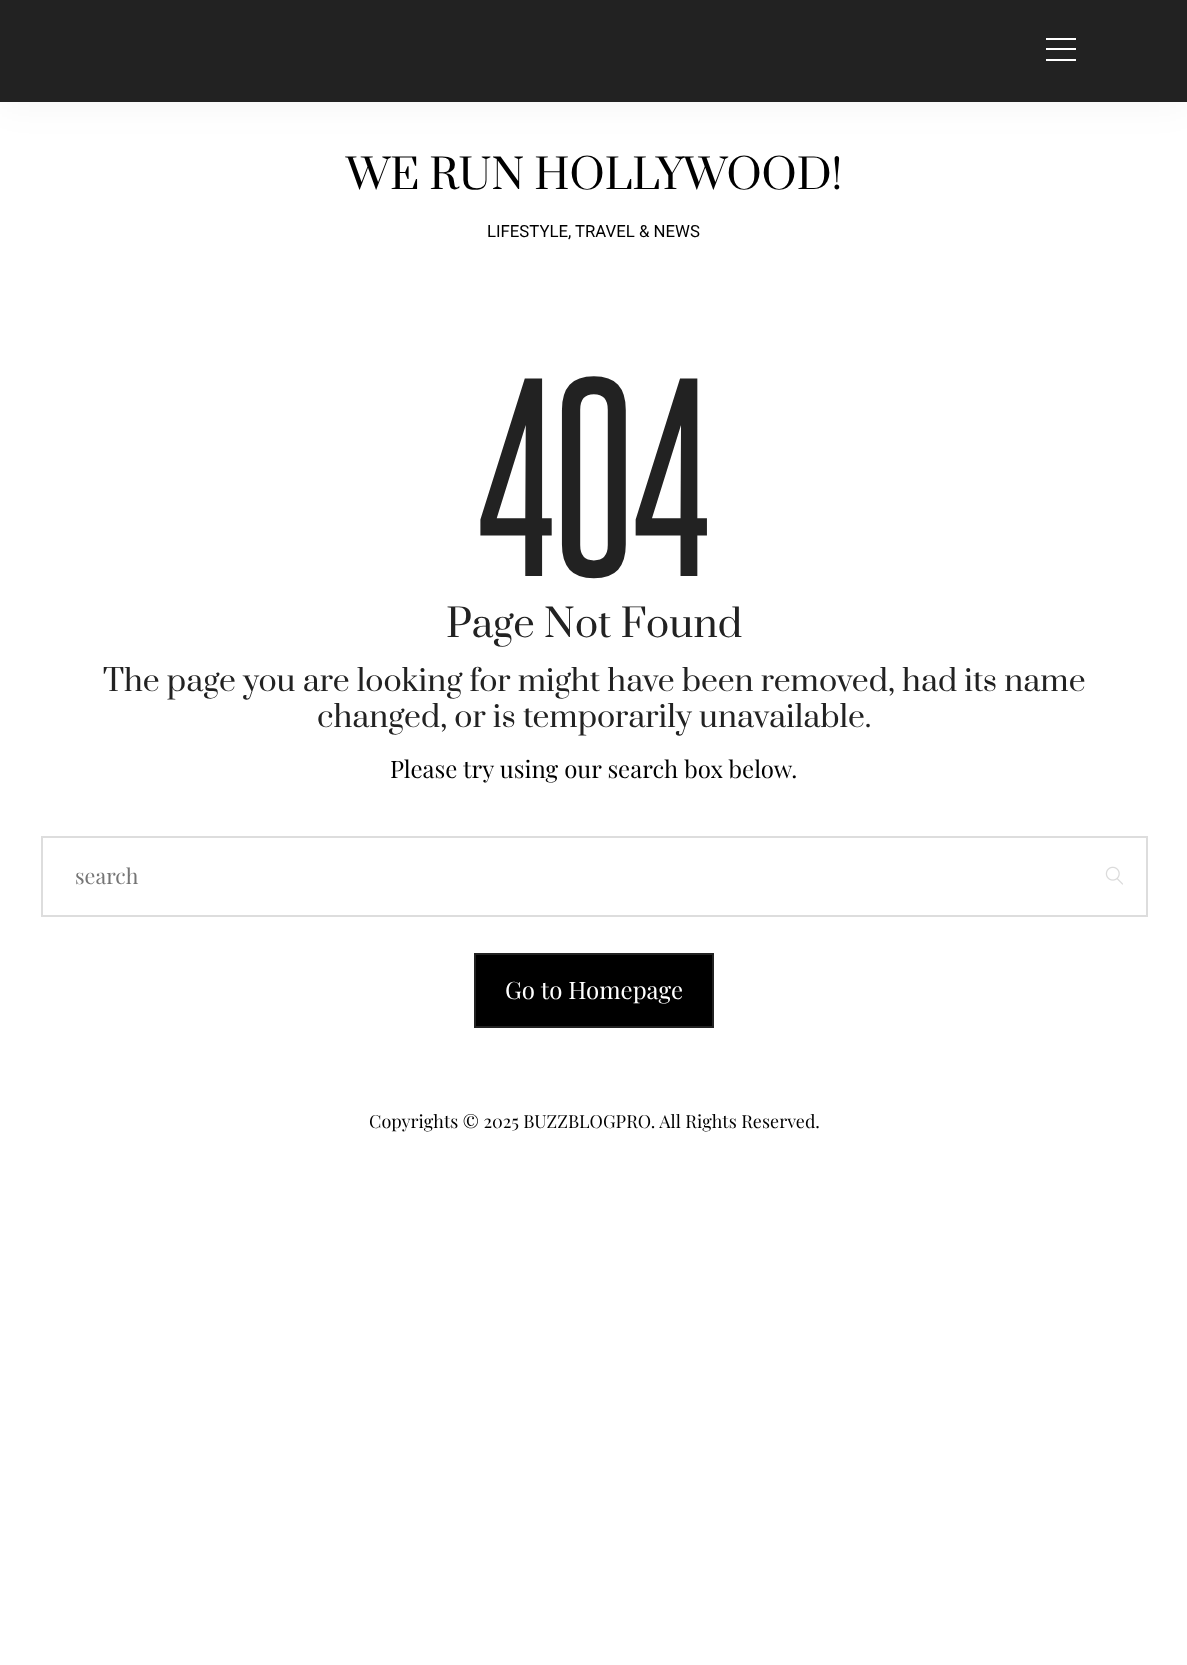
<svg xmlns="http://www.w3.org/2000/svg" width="1187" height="1665">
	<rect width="100%" height="100%" fill="#FFFFFF" />
	<rect x="0" y="3" width="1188" height="102" fill="#000000" fill-opacity="0.04" filter="blur(18px)" />
	<rect x="0" y="0" width="1187" height="102" fill="#222222" />
	<rect x="1046" y="48" width="30" height="2" fill="#FFFFFF" />
	<rect x="1046" y="38" width="30" height="2" fill="#FFFFFF" />
	<rect x="1046" y="59" width="30" height="2" fill="#FFFFFF" />
	<text x="346" y="189" font-family="Prata" font-size="40.75" fill="#000000">WE RUN HOLLYWOOD!</text>
	<text x="487" y="237" font-family="Heebo" font-size="16.75" fill="#000000">LIFESTYLE, TRAVEL &amp; NEWS</text>
	<text x="478" y="576" font-family="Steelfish" font-size="240" fill="#222222">404</text>
	<text x="446" y="637" font-family="Prata" font-size="38.25" fill="#222222">Page Not Found</text>
	<g font-family="Prata" font-size="30" fill="#222222">
		<text x="103" y="691">The page you are looking for might have been removed, had its name</text>
		<text x="317" y="727">changed, or is temporarily unavailable.</text>
	</g>
	<text x="390" y="778" font-family="Playfair Display" font-size="24" fill="#000000">Please try using our search box below.</text>
	<rect x="42" y="837" width="1105" height="79" fill="none" stroke="#DDDDDD" stroke-width="2" />
	<text x="75" y="884" font-family="Playfair Display" font-size="21.5" fill="#757575">search</text>
	<image x="1105" y="866" width="18" height="19" href="assets/img1.png" />
	<rect x="475" y="954" width="238" height="73" fill="#000000" stroke="#222222" stroke-width="2" />
	<text x="505" y="999" font-family="Playfair Display" font-size="24" fill="#FFFFFF">Go to Homepage</text>
	<text x="369" y="1128" font-family="Playfair Display" font-size="18" fill="#000000">Copyrights © 2025 BUZZBLOGPRO. All Rights Reserved.</text>
</svg>
